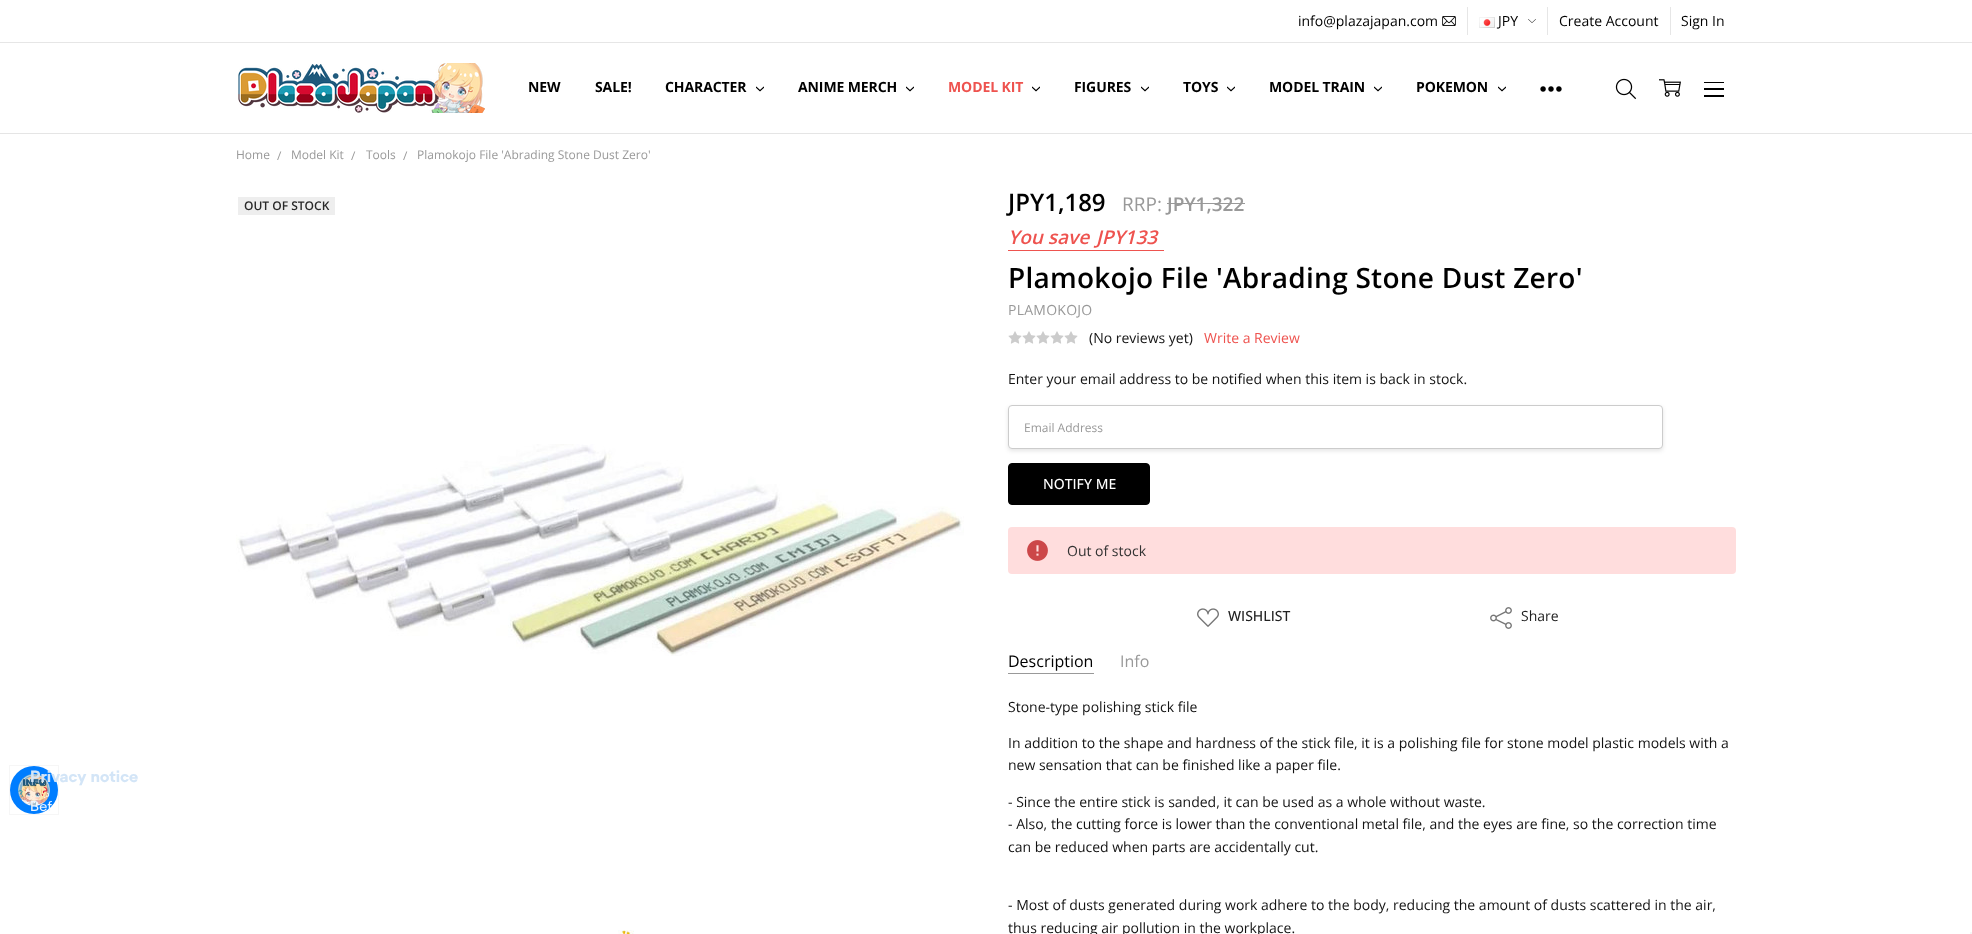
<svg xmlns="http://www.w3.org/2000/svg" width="1972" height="934">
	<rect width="100%" height="100%" fill="#FFFFFF" />
	<rect x="0" y="133" width="1972" height="1" fill="#E5E5E5" />
	<rect x="0" y="42" width="1972" height="1" fill="#E6E6E6" />
	<text x="1298" y="26" font-family="Open Sans" font-size="14" fill="#000000">info@plazajapan.com</text>
	<image x="1442" y="16" width="14" height="10" href="assets/img1.png" />
	<rect x="1467" y="7" width="1" height="28" fill="#E6E6E6" />
	<image x="1479" y="17" width="16" height="11" href="assets/img2.png" />
	<text x="1498" y="26" font-family="Open Sans" font-size="14" fill="#000000">JPY</text>
	<image x="1528" y="19" width="8" height="4" href="assets/img3.png" />
	<rect x="1547" y="7" width="1" height="28" fill="#E6E6E6" />
	<text x="1559" y="26" font-family="Open Sans" font-size="14" fill="#000000">Create Account</text>
	<rect x="1670" y="7" width="1" height="28" fill="#E6E6E6" />
	<text x="1681" y="26" font-family="Open Sans" font-size="14" fill="#000000">Sign In</text>
	<image x="238" y="63" width="247" height="50" href="assets/img4.png" />
	<g font-family="Open Sans" font-size="14" font-weight="700" letter-spacing="-0.1" fill="#000000">
		<text x="528" y="92">NEW</text>
		<text x="595" y="92">SALE!</text>
		<text x="665" y="92">CHARACTER</text>
	</g>
	<image x="756" y="86" width="8" height="6" href="assets/img5.png" />
	<text x="798" y="92" font-family="Open Sans" font-size="14" font-weight="700" letter-spacing="-0.1" fill="#000000">ANIME MERCH</text>
	<image x="906" y="86" width="8" height="6" href="assets/img5.png" />
	<text x="948" y="92" font-family="Open Sans" font-size="14" font-weight="700" letter-spacing="-0.1" fill="#EE534F">MODEL KIT</text>
	<image x="1032" y="86" width="8" height="6" href="assets/img5.png" />
	<text x="1074" y="92" font-family="Open Sans" font-size="14" font-weight="700" letter-spacing="-0.1" fill="#000000">FIGURES</text>
	<image x="1141" y="86" width="8" height="6" href="assets/img5.png" />
	<text x="1183" y="92" font-family="Open Sans" font-size="14" font-weight="700" letter-spacing="-0.1" fill="#000000">TOYS</text>
	<image x="1227" y="86" width="8" height="6" href="assets/img5.png" />
	<text x="1269" y="92" font-family="Open Sans" font-size="14" font-weight="700" letter-spacing="-0.1" fill="#000000">MODEL TRAIN</text>
	<image x="1374" y="86" width="8" height="6" href="assets/img5.png" />
	<text x="1416" y="92" font-family="Open Sans" font-size="14" font-weight="700" letter-spacing="-0.1" fill="#000000">POKEMON</text>
	<image x="1498" y="86" width="8" height="6" href="assets/img5.png" />
	<image x="1540" y="86" width="22" height="6" href="assets/img6.png" />
	<image x="1615" y="78" width="22" height="22" href="assets/img7.png" />
	<image x="1659" y="79" width="22" height="18" href="assets/img8.png" />
	<rect x="1704" y="82" width="20" height="1" fill="#000000" />
	<rect x="1704" y="88" width="20" height="2" fill="#000000" />
	<rect x="1704" y="95" width="20" height="2" fill="#000000" />
	<rect x="9.5" y="765.5" width="49" height="49" fill="none" stroke="#161A1E" stroke-opacity="0.04" />
	<circle cx="34" cy="790" r="24" fill="#007DFF" />
	<image x="18" y="774" width="32" height="32" href="assets/img9.png" />
	<text x="30" y="782" font-family="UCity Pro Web" font-size="16" font-weight="700" fill="#D3E5F7">Privacy notice</text>
	<text x="30" y="811" font-family="UCity Pro Web" font-size="14" fill="#EDF5FE">Bef</text>
	<g font-family="Open Sans" font-size="12" fill="#999999">
		<text x="236" y="159">Home</text>
		<text x="277" y="160">/</text>
		<text x="291" y="159">Model Kit</text>
		<text x="351" y="160">/</text>
		<text x="366" y="159">Tools</text>
		<text x="403" y="160">/</text>
		<text x="417" y="159">Plamokojo File 'Abrading Stone Dust Zero'</text>
	</g>
	<rect x="238" y="197" width="97" height="18" fill="#EEEEEE" />
	<text x="244" y="210" font-family="Open Sans" font-size="12" font-weight="600" fill="#282828">OUT OF STOCK</text>
	<image x="236" y="444" width="728" height="212" href="assets/img10.png" />
	<image x="618" y="930" width="16" height="4" href="assets/img11.png" />
	<text x="1008" y="211" font-family="Open Sans" font-size="24" font-weight="600" fill="#000000">JPY1,189</text>
	<text x="1122" y="211" font-family="Open Sans" font-size="19" fill="#999999">RRP:</text>
	<text x="1167" y="211" font-family="Open Sans" font-size="19" font-weight="600" fill="#999999">JPY1,322</text>
	<rect x="1167" y="203" width="78" height="1" fill="#999999" />
	<text x="1008" y="244" font-family="Open Sans" font-size="19" font-weight="600" font-style="italic" fill="#EE534F">You save</text>
	<rect x="1008" y="250" width="156" height="1" fill="#EE534F" />
	<text x="1096" y="244" font-family="Open Sans" font-size="19" font-weight="600" font-style="italic" fill="#EE534F">JPY133</text>
	<text x="1008" y="288" font-family="Open Sans" font-size="28" font-weight="600" letter-spacing="0.25" fill="#000000">Plamokojo File 'Abrading Stone Dust Zero'</text>
	<text x="1008" y="315" font-family="Open Sans" font-size="14" letter-spacing="0.25" fill="#999999">PLAMOKOJO</text>
	<image x="1008" y="331" width="14" height="13" href="assets/img12.png" />
	<image x="1022" y="331" width="14" height="13" href="assets/img12.png" />
	<image x="1036" y="331" width="14" height="13" href="assets/img12.png" />
	<image x="1050" y="331" width="14" height="13" href="assets/img12.png" />
	<image x="1064" y="331" width="14" height="13" href="assets/img12.png" />
	<text x="1089" y="343" font-family="Open Sans" font-size="14" fill="#131313">(No reviews yet)</text>
	<text x="1204" y="343" font-family="Open Sans" font-size="14" fill="#EE534F">Write a Review</text>
	<text x="1008" y="384" font-family="Open Sans" font-size="14" fill="#131313">Enter your email address to be notified when this item is back in stock.</text>
	<rect x="1008" y="407" width="655" height="44" rx="4" fill="#000000" fill-opacity="0.1" filter="blur(2px)" />
	<rect x="1008.5" y="405.5" width="654" height="43" rx="3.5" fill="#FFFFFF" stroke="#CCCCCC" />
	<text x="1024" y="432" font-family="Open Sans" font-size="12" fill="#999999">Email Address</text>
	<rect x="1008.5" y="463.5" width="141" height="41" rx="3.5" fill="#000000" stroke="#000000" />
	<text x="1043" y="489" font-family="Open Sans" font-size="14" font-weight="500" fill="#FFFFFF">NOTIFY ME</text>
	<rect x="1008" y="527" width="728" height="47" rx="4" fill="#FFDDDD" />
	<image x="1027" y="540" width="21" height="21" href="assets/img13.png" />
	<text x="1067" y="556" font-family="Open Sans" font-size="14" fill="#333333">Out of stock</text>
	<image x="1197" y="608" width="22" height="19" href="assets/img14.png" />
	<text x="1228" y="621" font-family="Open Sans" font-size="14" font-weight="500" fill="#222222">WISHLIST</text>
	<image x="1490" y="607" width="22" height="22" href="assets/img15.png" />
	<text x="1521" y="621" font-family="Open Sans" font-size="14" fill="#222222">Share</text>
	<rect x="1008" y="673" width="86" height="1" fill="#999999" />
	<text x="1008" y="667" font-family="Open Sans" font-size="16" fill="#000000">Description</text>
	<text x="1120" y="667" font-family="Open Sans" font-size="16" fill="#999999">Info</text>
	<g font-family="Open Sans" font-size="14" fill="#131313">
		<text x="1008" y="712">Stone-type polishing stick file</text>
		<text x="1008" y="748">In addition to the shape and hardness of the stick file, it is a polishing file for stone model plastic models with a</text>
		<text x="1008" y="770">new sensation that can be finished like a paper file.</text>
		<text x="1008" y="807">- Since the entire stick is sanded, it can be used as a whole without waste.</text>
		<text x="1008" y="829">- Also, the cutting force is lower than the conventional metal file, and the eyes are fine, so the correction time</text>
		<text x="1008" y="852">can be reduced when parts are accidentally cut.</text>
		<text x="1008" y="910">- Most of dusts generated during work adhere to the body, reducing the amount of dusts scattered in the air,</text>
		<text x="1008" y="933">thus reducing air pollution in the workplace.</text>
	</g>
	<rect x="1970" y="932" width="2" height="2" fill="#F5F5F5" />
</svg>
